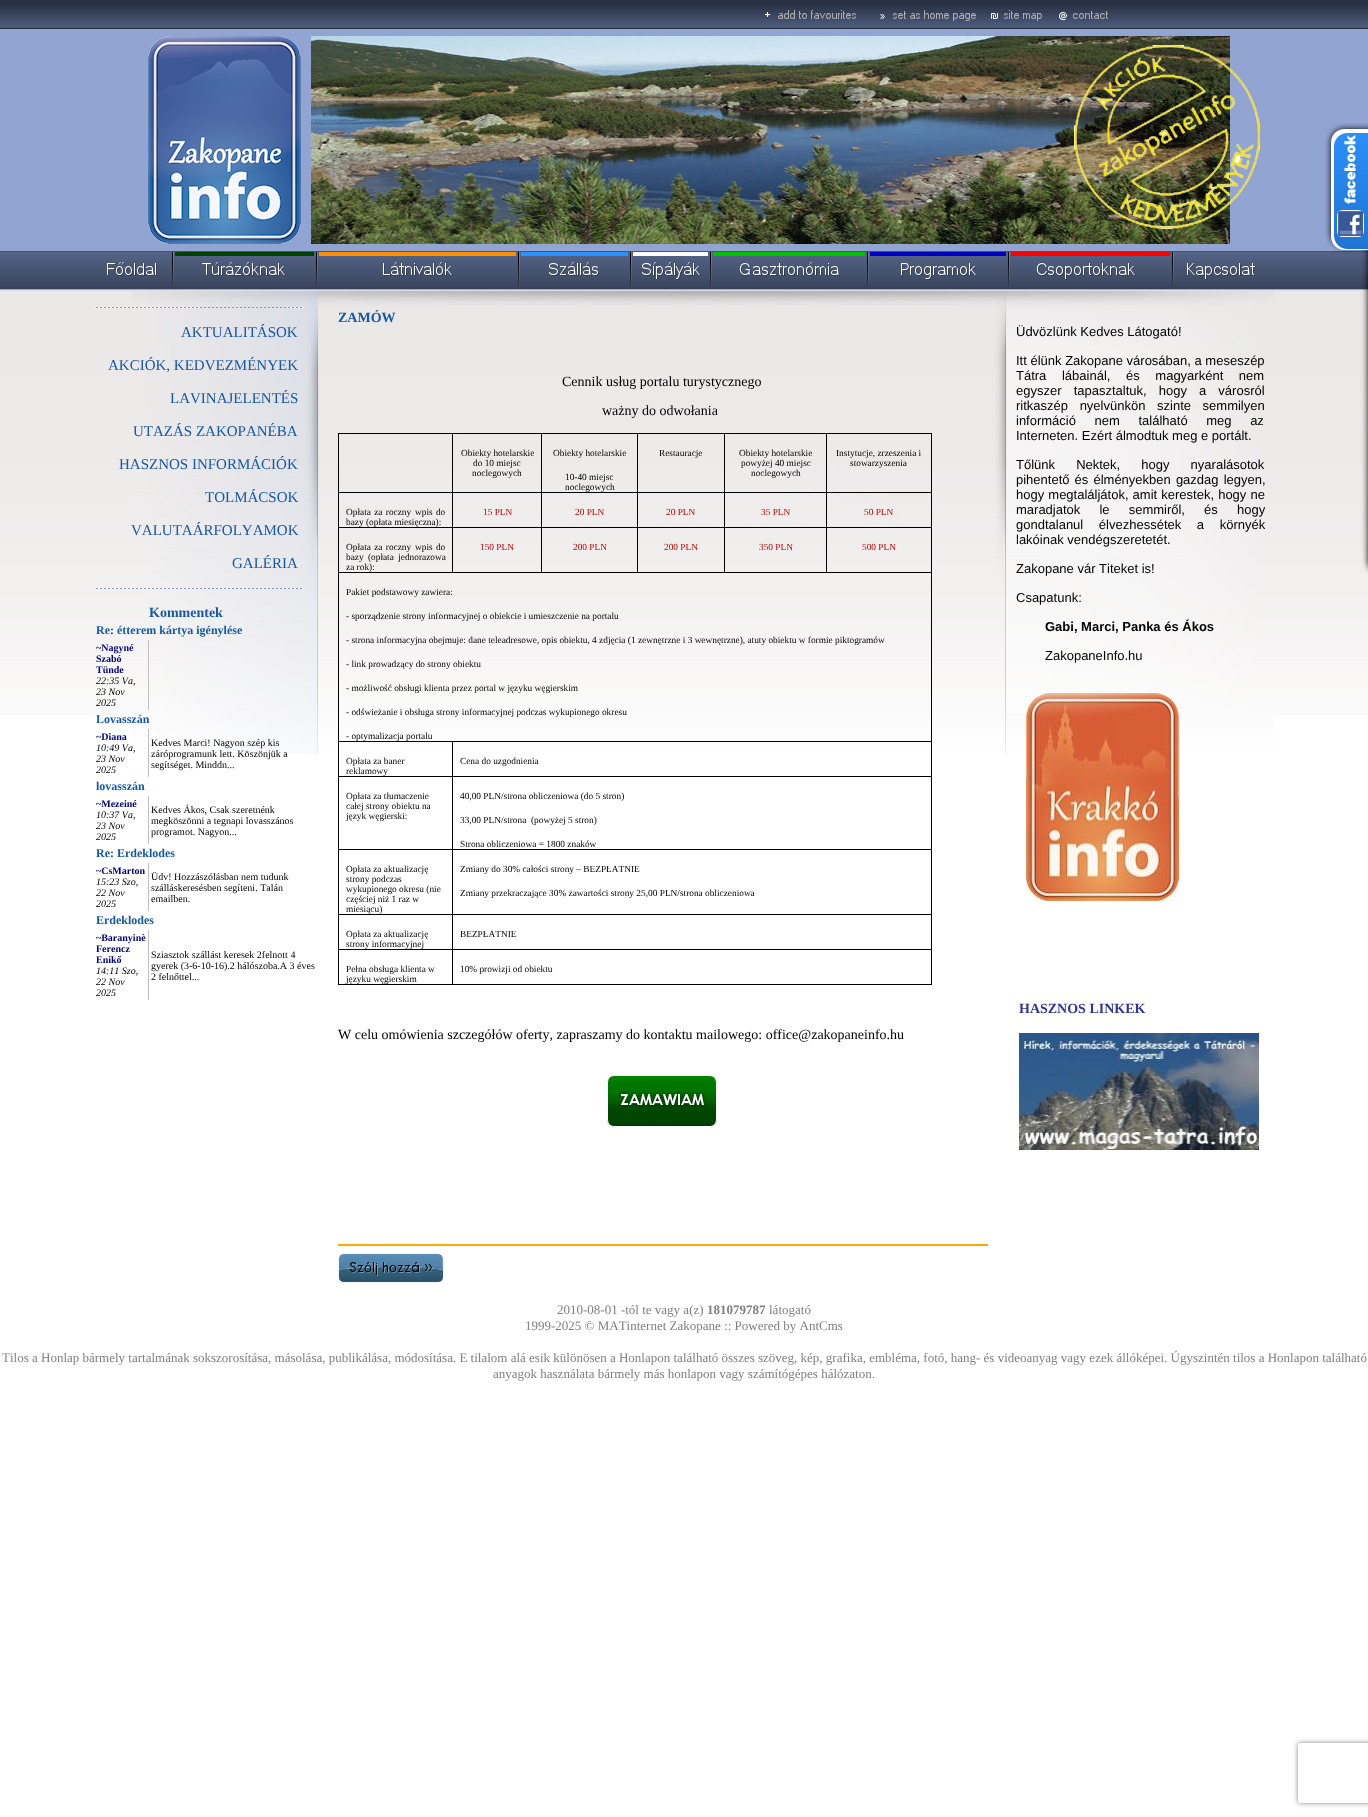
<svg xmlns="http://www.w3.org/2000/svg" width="1368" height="1817">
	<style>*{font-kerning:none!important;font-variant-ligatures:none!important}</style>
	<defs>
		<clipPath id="clip1"><path d="M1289 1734H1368V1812H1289ZM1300 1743H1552C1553 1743 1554 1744 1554 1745V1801C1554 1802 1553 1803 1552 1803H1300C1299 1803 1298 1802 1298 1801V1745C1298 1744 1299 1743 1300 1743Z" clip-rule="evenodd" /></clipPath>
	</defs>
	<rect width="100%" height="100%" fill="#FFFFFF" />
	<image x="0" y="0" width="1368" height="715" href="assets/img1.png" />
	<image x="311" y="36" width="919" height="208" href="assets/img6.png" />
	<image x="1074" y="45" width="186" height="184" href="assets/img2.png" />
	<image x="1325" y="123" width="43" height="450" href="assets/img3.png" />
	<image x="765" y="10" width="343" height="11" href="assets/img4.png" />
	<image x="148" y="36" width="153" height="208" href="assets/img5.png" />
	<image x="107" y="252" width="66" height="35" href="assets/img7.png" />
	<image x="173" y="252" width="144" height="35" href="assets/img8.png" />
	<image x="317" y="252" width="202" height="35" href="assets/img9.png" />
	<image x="519" y="252" width="112" height="35" href="assets/img10.png" />
	<image x="631" y="252" width="80" height="35" href="assets/img11.png" />
	<image x="711" y="252" width="157" height="35" href="assets/img12.png" />
	<image x="868" y="252" width="141" height="35" href="assets/img13.png" />
	<image x="1009" y="252" width="164" height="35" href="assets/img14.png" />
	<image x="1173" y="252" width="83" height="33" href="assets/img15.png" />
	<image x="132" y="291" width="1142" height="463" href="assets/img16.png" />
	<image x="94" y="307" width="210" height="1" href="assets/img17.png" />
	<g font-family="Liberation Serif" font-size="15" fill="#1658A4">
		<text x="181" y="337">AKTUALITÁSOK</text>
		<text x="108" y="370">AKCIÓK, KEDVEZMÉNYEK</text>
		<text x="170" y="403">LAVINAJELENTÉS</text>
		<text x="133" y="436">UTAZÁS ZAKOPANÉBA</text>
		<text x="119" y="469">HASZNOS INFORMÁCIÓK</text>
		<text x="205" y="502">TOLMÁCSOK</text>
		<text x="131" y="535">VALUTAÁRFOLYAMOK</text>
		<text x="232" y="568">GALÉRIA</text>
	</g>
	<image x="94" y="588" width="210" height="1" href="assets/img18.png" />
	<text x="149" y="617" font-family="Liberation Serif" font-size="14" font-weight="700" fill="#1658A4">Kommentek</text>
	<text x="96" y="634" font-family="Liberation Serif" font-size="12" font-weight="700" fill="#1658A4">Re: étterem kártya igénylése</text>
	<rect x="148" y="640" width="1" height="70" fill="#C0C0C0" />
	<g font-family="Liberation Serif" font-size="10" font-weight="700" fill="#000080">
		<text x="96" y="651">~Nagyné</text>
		<text x="96" y="662">Szabó</text>
		<text x="96" y="673">Tünde</text>
	</g>
	<g font-family="Liberation Serif" font-size="10" font-style="italic" fill="#000000">
		<text x="96" y="684">22:35 Va,</text>
		<text x="96" y="695">23 Nov</text>
		<text x="96" y="706">2025</text>
	</g>
	<text x="96" y="723" font-family="Liberation Serif" font-size="12" font-weight="700" fill="#1658A4">Lovasszán</text>
	<rect x="148" y="729" width="1" height="48" fill="#C0C0C0" />
	<text x="96" y="740" font-family="Liberation Serif" font-size="10" font-weight="700" fill="#000080">~Diana</text>
	<g font-family="Liberation Serif" font-size="10" font-style="italic" fill="#000000">
		<text x="96" y="751">10:49 Va,</text>
		<text x="96" y="762">23 Nov</text>
		<text x="96" y="773">2025</text>
	</g>
	<g font-family="Liberation Serif" font-size="10" fill="#000000">
		<text x="151" y="746">Kedves Marci! Nagyon szép kis</text>
		<text x="151" y="757">záróprogramunk lett. Köszönjük a</text>
		<text x="151" y="768">segítséget. Minddn...</text>
	</g>
	<text x="96" y="790" font-family="Liberation Serif" font-size="12" font-weight="700" fill="#1658A4">lovasszán</text>
	<rect x="148" y="796" width="1" height="48" fill="#C0C0C0" />
	<text x="96" y="807" font-family="Liberation Serif" font-size="10" font-weight="700" fill="#000080">~Mezeiné</text>
	<g font-family="Liberation Serif" font-size="10" font-style="italic" fill="#000000">
		<text x="96" y="818">10:37 Va,</text>
		<text x="96" y="829">23 Nov</text>
		<text x="96" y="840">2025</text>
	</g>
	<g font-family="Liberation Serif" font-size="10" fill="#000000">
		<text x="151" y="813">Kedves Ákos, Csak szeretnénk</text>
		<text x="151" y="824">megköszönni a tegnapi lovasszános</text>
		<text x="151" y="835">programot. Nagyon...</text>
	</g>
	<text x="96" y="857" font-family="Liberation Serif" font-size="12" font-weight="700" fill="#1658A4">Re: Erdeklodes</text>
	<rect x="148" y="863" width="1" height="48" fill="#C0C0C0" />
	<text x="96" y="874" font-family="Liberation Serif" font-size="10" font-weight="700" fill="#000080">~CsMarton</text>
	<g font-family="Liberation Serif" font-size="10" font-style="italic" fill="#000000">
		<text x="96" y="885">15:23 Szo,</text>
		<text x="96" y="896">22 Nov</text>
		<text x="96" y="907">2025</text>
	</g>
	<g font-family="Liberation Serif" font-size="10" fill="#000000">
		<text x="151" y="880">Üdv! Hozzászólásban nem tudunk</text>
		<text x="151" y="891">szálláskeresésben segíteni. Talán</text>
		<text x="151" y="902">emailben.</text>
	</g>
	<text x="96" y="924" font-family="Liberation Serif" font-size="12" font-weight="700" fill="#1658A4">Erdeklodes</text>
	<rect x="148" y="930" width="1" height="70" fill="#C0C0C0" />
	<g font-family="Liberation Serif" font-size="10" font-weight="700" fill="#000080">
		<text x="96" y="941">~Baranyinè</text>
		<text x="96" y="952">Ferencz</text>
		<text x="96" y="963">Enikő</text>
	</g>
	<g font-family="Liberation Serif" font-size="10" font-style="italic" fill="#000000">
		<text x="96" y="974">14:11 Szo,</text>
		<text x="96" y="985">22 Nov</text>
		<text x="96" y="996">2025</text>
	</g>
	<g font-family="Liberation Serif" font-size="10" fill="#000000">
		<text x="151" y="958">Sziasztok szállást keresek 2felnott 4</text>
		<text x="151" y="969">gyerek (3-6-10-16).2 hálószoba.A 3 éves</text>
		<text x="151" y="980">2 felnőttel...</text>
	</g>
	<text x="338" y="322" font-family="Liberation Serif" font-size="14" font-weight="700" fill="#1658A4">ZAMÓW</text>
	<g font-family="Liberation Serif" font-size="14" fill="#000000">
		<text x="562" y="386">Cennik usług portalu turystycznego</text>
		<text x="602" y="415">ważny do odwołania</text>
	</g>
	<rect x="724" y="433" width="208" height="1" fill="#000000" />
	<rect x="931" y="492" width="1" height="493" fill="#000000" />
	<rect x="931" y="433" width="1" height="60" fill="#000000" />
	<rect x="826" y="572" width="106" height="1" fill="#000000" />
	<rect x="826" y="527" width="1" height="46" fill="#000000" />
	<rect x="826" y="527" width="106" height="1" fill="#000000" />
	<rect x="826" y="492" width="1" height="36" fill="#000000" />
	<rect x="826" y="492" width="106" height="1" fill="#000000" />
	<rect x="826" y="433" width="1" height="60" fill="#000000" />
	<rect x="724" y="572" width="103" height="1" fill="#000000" />
	<rect x="724" y="527" width="1" height="46" fill="#000000" />
	<rect x="724" y="527" width="103" height="1" fill="#000000" />
	<rect x="724" y="492" width="1" height="36" fill="#000000" />
	<rect x="724" y="492" width="103" height="1" fill="#000000" />
	<rect x="724" y="433" width="1" height="60" fill="#000000" />
	<rect x="637" y="433" width="88" height="1" fill="#000000" />
	<rect x="637" y="572" width="88" height="1" fill="#000000" />
	<rect x="637" y="527" width="1" height="46" fill="#000000" />
	<rect x="637" y="527" width="88" height="1" fill="#000000" />
	<rect x="637" y="492" width="1" height="36" fill="#000000" />
	<rect x="637" y="492" width="88" height="1" fill="#000000" />
	<rect x="637" y="433" width="1" height="60" fill="#000000" />
	<rect x="541" y="433" width="97" height="1" fill="#000000" />
	<rect x="541" y="572" width="97" height="1" fill="#000000" />
	<rect x="541" y="527" width="1" height="46" fill="#000000" />
	<rect x="541" y="527" width="97" height="1" fill="#000000" />
	<rect x="541" y="492" width="1" height="36" fill="#000000" />
	<rect x="541" y="492" width="97" height="1" fill="#000000" />
	<rect x="541" y="433" width="1" height="60" fill="#000000" />
	<rect x="452" y="433" width="90" height="1" fill="#000000" />
	<rect x="452" y="572" width="90" height="1" fill="#000000" />
	<rect x="452" y="527" width="1" height="46" fill="#000000" />
	<rect x="452" y="527" width="90" height="1" fill="#000000" />
	<rect x="452" y="492" width="1" height="36" fill="#000000" />
	<rect x="452" y="492" width="90" height="1" fill="#000000" />
	<rect x="452" y="433" width="1" height="60" fill="#000000" />
	<rect x="338" y="433" width="115" height="1" fill="#000000" />
	<rect x="452" y="984" width="480" height="1" fill="#000000" />
	<rect x="452" y="949" width="1" height="36" fill="#000000" />
	<rect x="452" y="949" width="480" height="1" fill="#000000" />
	<rect x="452" y="914" width="1" height="36" fill="#000000" />
	<rect x="452" y="914" width="480" height="1" fill="#000000" />
	<rect x="452" y="849" width="1" height="66" fill="#000000" />
	<rect x="452" y="849" width="480" height="1" fill="#000000" />
	<rect x="452" y="776" width="1" height="74" fill="#000000" />
	<rect x="452" y="776" width="480" height="1" fill="#000000" />
	<rect x="452" y="741" width="1" height="36" fill="#000000" />
	<rect x="338" y="984" width="115" height="1" fill="#000000" />
	<rect x="338" y="949" width="1" height="36" fill="#000000" />
	<rect x="338" y="949" width="115" height="1" fill="#000000" />
	<rect x="338" y="914" width="1" height="36" fill="#000000" />
	<rect x="338" y="914" width="115" height="1" fill="#000000" />
	<rect x="338" y="849" width="1" height="66" fill="#000000" />
	<rect x="338" y="849" width="115" height="1" fill="#000000" />
	<rect x="338" y="776" width="1" height="74" fill="#000000" />
	<rect x="338" y="776" width="115" height="1" fill="#000000" />
	<rect x="338" y="741" width="1" height="36" fill="#000000" />
	<rect x="338" y="741" width="594" height="1" fill="#000000" />
	<rect x="338" y="572" width="1" height="170" fill="#000000" />
	<rect x="338" y="572" width="115" height="1" fill="#000000" />
	<rect x="338" y="527" width="1" height="46" fill="#000000" />
	<rect x="338" y="527" width="115" height="1" fill="#000000" />
	<rect x="338" y="492" width="1" height="36" fill="#000000" />
	<rect x="338" y="492" width="115" height="1" fill="#000000" />
	<rect x="338" y="433" width="1" height="60" fill="#000000" />
	<g font-family="Liberation Serif" font-size="9.33" fill="#000000">
		<text x="461" y="456">Obiekty hotelarskie</text>
		<text x="473" y="466">do 10 miejsc</text>
		<text x="472" y="476">noclegowych</text>
		<text x="553" y="456">Obiekty hotelarskie</text>
		<text x="565" y="480">10-40 miejsc</text>
		<text x="565" y="490">noclegowych</text>
		<text x="659" y="456">Restauracje</text>
		<text x="739" y="456">Obiekty hotelarskie</text>
		<text x="741" y="466">powyżej 40 miejsc</text>
		<text x="751" y="476">noclegowych</text>
		<text x="836" y="456">Instytucje, zrzeszenia i</text>
		<text x="850" y="466">stowarzyszenia</text>
		<text x="346" y="515" word-spacing="1">Opłata za roczny</text>
		<text x="415" y="515" word-spacing="1">wpis do</text>
		<text x="346" y="525">bazy (opłata miesięczna):</text>
	</g>
	<g font-family="Liberation Serif" font-size="9.33" fill="#C00000">
		<text x="483" y="515">15 PLN</text>
		<text x="575" y="515">20 PLN</text>
		<text x="666" y="515">20 PLN</text>
		<text x="761" y="515">35 PLN</text>
		<text x="864" y="515">50 PLN</text>
	</g>
	<g font-family="Liberation Serif" font-size="9.33" fill="#000000">
		<text x="346" y="550" word-spacing="1">Opłata za roczny</text>
		<text x="415" y="550" word-spacing="1">wpis do</text>
		<text x="346" y="560" word-spacing="2">bazy (opłata jednorazowa</text>
		<text x="346" y="570">za rok):</text>
	</g>
	<g font-family="Liberation Serif" font-size="9.33" fill="#C00000">
		<text x="480" y="550">150 PLN</text>
		<text x="573" y="550">200 PLN</text>
		<text x="664" y="550">200 PLN</text>
		<text x="759" y="550">350 PLN</text>
		<text x="862" y="550">500 PLN</text>
	</g>
	<g font-family="Liberation Serif" font-size="9.33" fill="#000000">
		<text x="346" y="595">Pakiet podstawowy zawiera:</text>
		<text x="346" y="619">- sporządzenie strony informacyjnej o obiekcie i umieszczenie na portalu</text>
		<text x="346" y="643">- strona informacyjna obejmuje: dane teleadresowe, opis obiektu, 4 zdjęcia (1 zewnętrzne i 3 wewnętrzne), atuty obiektu w formie piktogramów</text>
		<text x="346" y="667">- link prowadzący do strony obiektu</text>
		<text x="346" y="691">- możliwość obsługi klienta przez portal w języku węgierskim</text>
		<text x="346" y="715">- odświeżanie i obsługa strony informacyjnej podczas wykupionego okresu</text>
		<text x="346" y="739">- optymalizacja portalu</text>
		<text x="346" y="764">Opłata za baner</text>
		<text x="346" y="774">reklamowy</text>
		<text x="460" y="764">Cena do uzgodnienia</text>
		<text x="346" y="799">Opłata za tłumaczenie</text>
		<text x="346" y="809">całej strony obiektu na</text>
		<text x="346" y="819">język węgierski:</text>
		<text x="460" y="799">40,00 PLN/strona obliczeniowa (do 5 stron)</text>
		<text x="460" y="823" xml:space="preserve">33,00 PLN/strona  (powyżej 5 stron)</text>
		<text x="460" y="847">Strona obliczeniowa = 1800 znaków</text>
		<text x="346" y="872">Opłata za aktualizację</text>
		<text x="346" y="882">strony podczas</text>
		<text x="346" y="892">wykupionego okresu (nie</text>
		<text x="346" y="902">częściej niż 1 raz w</text>
		<text x="346" y="912">miesiącu)</text>
		<text x="460" y="872">Zmiany do 30% całości strony – BEZPŁATNIE</text>
		<text x="460" y="896">Zmiany przekraczające 30% zawartości strony 25,00 PLN/strona obliczeniowa</text>
		<text x="346" y="937">Opłata za aktualizację</text>
		<text x="346" y="947">strony informacyjnej</text>
		<text x="460" y="937">BEZPŁATNIE</text>
		<text x="346" y="972">Pełna obsługa klienta w</text>
		<text x="346" y="982">języku węgierskim</text>
		<text x="460" y="972">10% prowizji od obiektu</text>
	</g>
	<text x="338" y="1039" font-family="Liberation Serif" font-size="14" fill="#000000">W celu omówienia szczegółów oferty, zapraszamy do kontaktu mailowego: office@zakopaneinfo.hu</text>
	<image x="607" y="1075" width="110" height="52" href="assets/img19.png" />
	<rect x="338" y="1244" width="650" height="2" fill="#FAAA00" />
	<image x="338" y="1253" width="106" height="30" href="assets/img20.png" />
	<g font-family="Liberation Sans" font-size="13" fill="#000000">
		<text x="1016" y="336">Üdvözlünk Kedves Látogató!</text>
		<text x="1016" y="365">Itt élünk Zakopane városában, a meseszép</text>
		<text x="1016" y="380" word-spacing="12">Tátra lábainál, és magyarként nem</text>
		<text x="1016" y="395" word-spacing="8.5">egyszer tapasztaltuk, hogy a városról</text>
		<text x="1016" y="410" word-spacing="8">ritkaszép nyelvünkön szinte semmilyen</text>
		<text x="1016" y="425" word-spacing="15">információ nem található meg az</text>
		<text x="1016" y="440">Interneten. Ezért álmodtuk meg e portált.</text>
		<text x="1016" y="469" word-spacing="17.5">Tőlünk Nektek, hogy nyaralásotok</text>
		<text x="1016" y="484" word-spacing="1.5">pihentető és élményekben gazdag legyen,</text>
		<text x="1016" y="499" word-spacing="0.5">hogy megtaláljátok, amit kerestek, hogy ne</text>
		<text x="1016" y="514" word-spacing="15.5">maradjatok le semmiről, és hogy</text>
		<text x="1016" y="529" word-spacing="12">gondtalanul élvezhessétek a környék</text>
		<text x="1016" y="544">lakóinak vendégszeretetét.</text>
		<text x="1016" y="573">Zakopane vár Titeket is!</text>
		<text x="1016" y="602">Csapatunk:</text>
	</g>
	<text x="1045" y="631" font-family="Liberation Sans" font-size="13" font-weight="700" fill="#000000">Gabi, Marci, Panka és Ákos</text>
	<text x="1045" y="660" font-family="Liberation Sans" font-size="13" fill="#000000">ZakopaneInfo.hu</text>
	<image x="1026" y="693" width="153" height="208" href="assets/img21.png" />
	<text x="1019" y="1013" font-family="Liberation Serif" font-size="14" font-weight="700" fill="#333399">HASZNOS LINKEK</text>
	<image x="1019" y="1033" width="240" height="117" href="assets/img22.png" />
	<text x="557" y="1314" font-family="Liberation Serif" font-size="13" fill="#808080">2010-08-01 -tól te vagy a(z)</text>
	<text x="707" y="1314" font-family="Liberation Serif" font-size="13" font-weight="700" fill="#808080">181079787</text>
	<g font-family="Liberation Serif" font-size="13" fill="#808080">
		<text x="769" y="1314">látogató</text>
		<text x="525" y="1330">1999-2025 © MATinternet Zakopane :: Powered by AntCms</text>
		<text x="2" y="1362">Tilos a Honlap bármely tartalmának sokszorosítása, másolása, publikálása, módosítása. E tilalom alá esik különösen a Honlapon található összes szöveg, kép, grafika, embléma, fotó, hang- és videoanyag vagy ezek állóképei. Úgyszintén tilos a Honlapon található</text>
		<text x="493" y="1378">anyagok használata bármely más honlapon vagy számítógépes hálózaton.</text>
	</g>
	<g clip-path="url(#clip1)">
		<rect x="1298" y="1743" width="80" height="60" rx="2" fill="#808080" filter="blur(2.5px)" />
	</g>
</svg>
